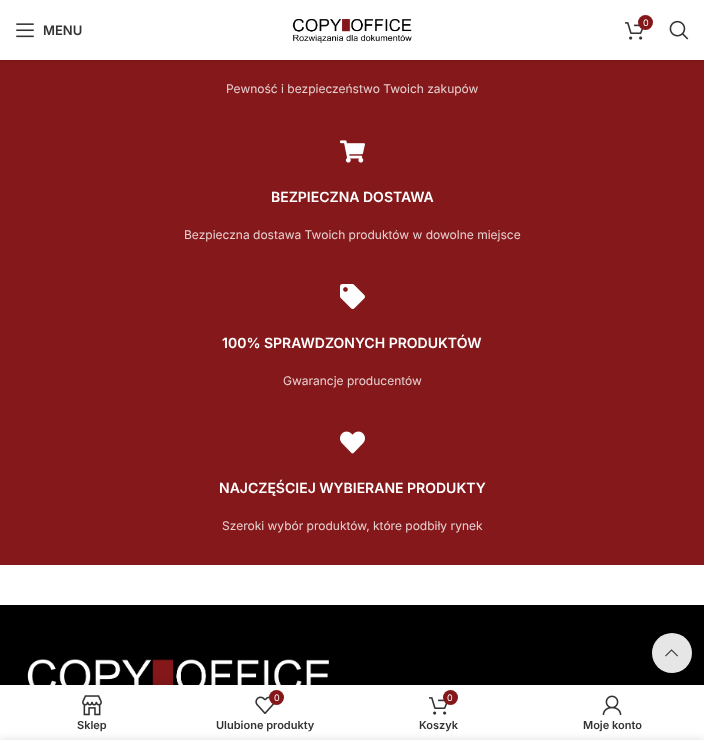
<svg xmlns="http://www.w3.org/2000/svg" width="704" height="740">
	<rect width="100%" height="100%" fill="#FFFFFF" />
	<rect x="0" y="60" width="704" height="505" fill="#85181A" />
	<rect x="0" y="1" width="704" height="60" fill="#000000" fill-opacity="0.1" filter="blur(1.5px)" />
	<rect x="0" y="0" width="704" height="60" fill="#FFFFFF" />
	<image x="292" y="18" width="120" height="25" href="assets/img1.png" />
	<image x="625" y="22" width="19" height="18" href="assets/img2.png" />
	<circle cx="645.5" cy="22.5" r="7.5" fill="#841719" />
	<text x="643" y="26" font-family="Inter" font-size="9" fill="#FFFFFF">0</text>
	<image x="669" y="20" width="20" height="20" href="assets/img3.png" />
	<image x="16" y="23" width="18" height="15" href="assets/img4.png" />
	<text x="43" y="35" font-family="Inter" font-size="13" font-weight="600" fill="#333333">MENU</text>
	<text x="226" y="93" font-family="Inter" font-size="12" fill="#E7D1D1">Pewność i bezpieczeństwo Twoich zakupów</text>
	<image x="340" y="140" width="25" height="23" href="assets/img5.png" />
	<text x="271" y="202" font-family="Inter" font-size="14" font-weight="600" fill="#FFFFFF">BEZPIECZNA DOSTAWA</text>
	<text x="184" y="239" font-family="Inter" font-size="12" fill="#E7D1D1">Bezpieczna dostawa Twoich produktów w dowolne miejsce</text>
	<image x="340" y="284" width="25" height="25" href="assets/img6.png" />
	<text x="222" y="348" font-family="Inter" font-size="14" font-weight="600" fill="#FFFFFF">100% SPRAWDZONYCH PRODUKTÓW</text>
	<text x="283" y="385" font-family="Inter" font-size="12" fill="#E7D1D1">Gwarancje producentów</text>
	<image x="340" y="431" width="25" height="23" href="assets/img7.png" />
	<text x="219" y="493" font-family="Inter" font-size="14" font-weight="600" fill="#FFFFFF">NAJCZĘŚCIEJ WYBIERANE PRODUKTY</text>
	<text x="222" y="530" font-family="Inter" font-size="12" fill="#E7D1D1">Szeroki wybór produktów, które podbiły rynek</text>
	<rect x="0" y="605" width="704" height="80" fill="#000000" />
	<image x="27" y="659" width="302" height="26" href="assets/img8.png" />
	<circle cx="672" cy="653" r="20" fill="#E6E6E6" />
	<image x="665" y="649" width="13" height="8" href="assets/img9.png" />
	<rect x="0" y="685" width="704" height="55" fill="#000000" fill-opacity="0.12" filter="blur(4.5px)" />
	<rect x="0" y="685" width="704" height="55" fill="#FFFFFF" />
	<image x="82" y="695" width="20" height="21" href="assets/img10.png" />
	<text x="77" y="729" font-family="Inter" font-size="11" font-weight="600" fill="#333333">Sklep</text>
	<image x="255" y="696" width="20" height="18" href="assets/img11.png" />
	<circle cx="276.5" cy="697.5" r="7.5" fill="#841719" />
	<text x="274" y="701" font-family="Inter" font-size="9" fill="#FFFFFF">0</text>
	<text x="216" y="729" font-family="Inter" font-size="11" font-weight="600" fill="#333333">Ulubione produkty</text>
	<image x="429" y="697" width="19" height="18" href="assets/img2.png" />
	<circle cx="450.5" cy="697.5" r="7.5" fill="#841719" />
	<text x="447" y="701" font-family="Inter" font-size="9" fill="#FFFFFF">0</text>
	<text x="419" y="729" font-family="Inter" font-size="11" font-weight="600" fill="#333333">Koszyk</text>
	<image x="602" y="695" width="20" height="20" href="assets/img12.png" />
	<text x="583" y="729" font-family="Inter" font-size="11" font-weight="600" fill="#333333">Moje konto</text>
	<rect x="0" y="740" width="704" height="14" fill="#000000" fill-opacity="0.14" filter="blur(4.5px)" />
</svg>
